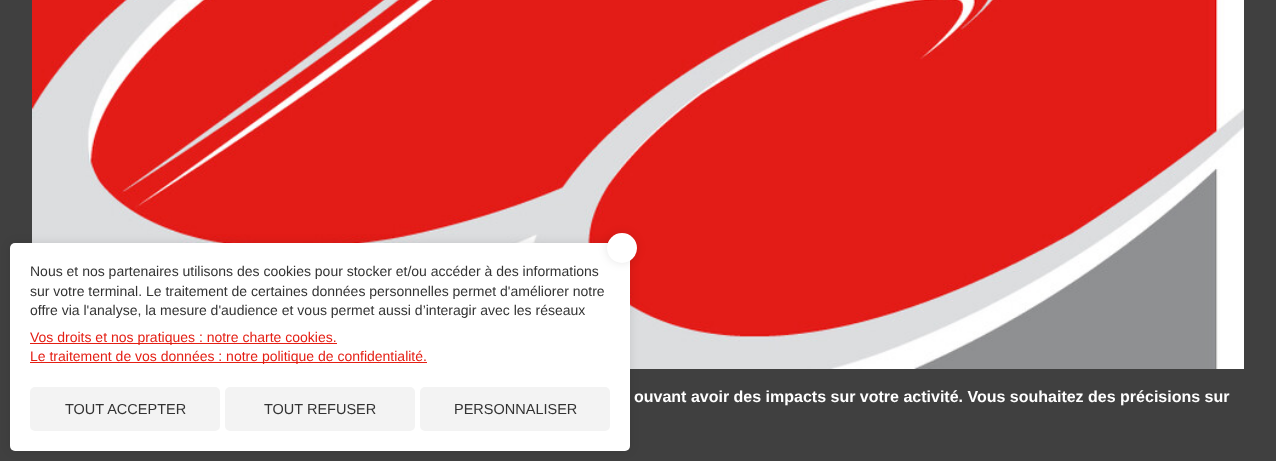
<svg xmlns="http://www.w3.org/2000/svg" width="1276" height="461">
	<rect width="100%" height="100%" fill="#404040" />
	<image x="32" y="0" width="1212" height="369" href="assets/img1.png" />
	<rect x="10" y="243" width="620" height="208" rx="5" fill="#000000" fill-opacity="0.1" filter="blur(5px)" />
	<rect x="10" y="243" width="620" height="208" rx="5" fill="#FFFFFF" />
	<rect x="607" y="233" width="30" height="30" rx="15" fill="#000000" fill-opacity="0.1" filter="blur(5px)" />
	<circle cx="622" cy="248" r="15" fill="#FFFFFF" />
	<g font-family="Liberation Sans" font-size="14" fill="#333333">
		<text x="30" y="276">Nous et nos partenaires utilisons des cookies pour stocker et/ou accéder à des informations</text>
		<text x="30" y="296">sur votre terminal. Le traitement de certaines données personnelles permet d'améliorer notre</text>
		<text x="30" y="315">offre via l'analyse, la mesure d'audience et vous permet aussi d’interagir avec les réseaux</text>
	</g>
	<rect x="30" y="343" width="307" height="1" fill="#E41E13" />
	<text x="30" y="342" font-family="Liberation Sans" font-size="14" fill="#E41E13">Vos droits et nos pratiques : notre charte cookies.</text>
	<rect x="30" y="362" width="397" height="1" fill="#E41E13" />
	<text x="30" y="361" font-family="Liberation Sans" font-size="14" fill="#E41E13">Le traitement de vos données : notre politique de confidentialité.</text>
	<rect x="30" y="387" width="190" height="44" rx="5" fill="#F3F3F3" />
	<text x="65" y="414" font-family="Liberation Sans" font-size="14.5" fill="#333333">TOUT ACCEPTER</text>
	<rect x="225" y="387" width="190" height="44" rx="5" fill="#F3F3F3" />
	<text x="264" y="414" font-family="Liberation Sans" font-size="14.5" fill="#333333">TOUT REFUSER</text>
	<rect x="420" y="387" width="190" height="44" rx="5" fill="#F3F3F3" />
	<text x="454" y="414" font-family="Liberation Sans" font-size="14.5" fill="#333333">PERSONNALISER</text>
	<text x="634" y="402" font-family="Liberation Sans" font-size="16" font-weight="700" fill="#FFFFFF">ouvant avoir des impacts sur votre activité. Vous souhaitez des précisions sur</text>
</svg>
